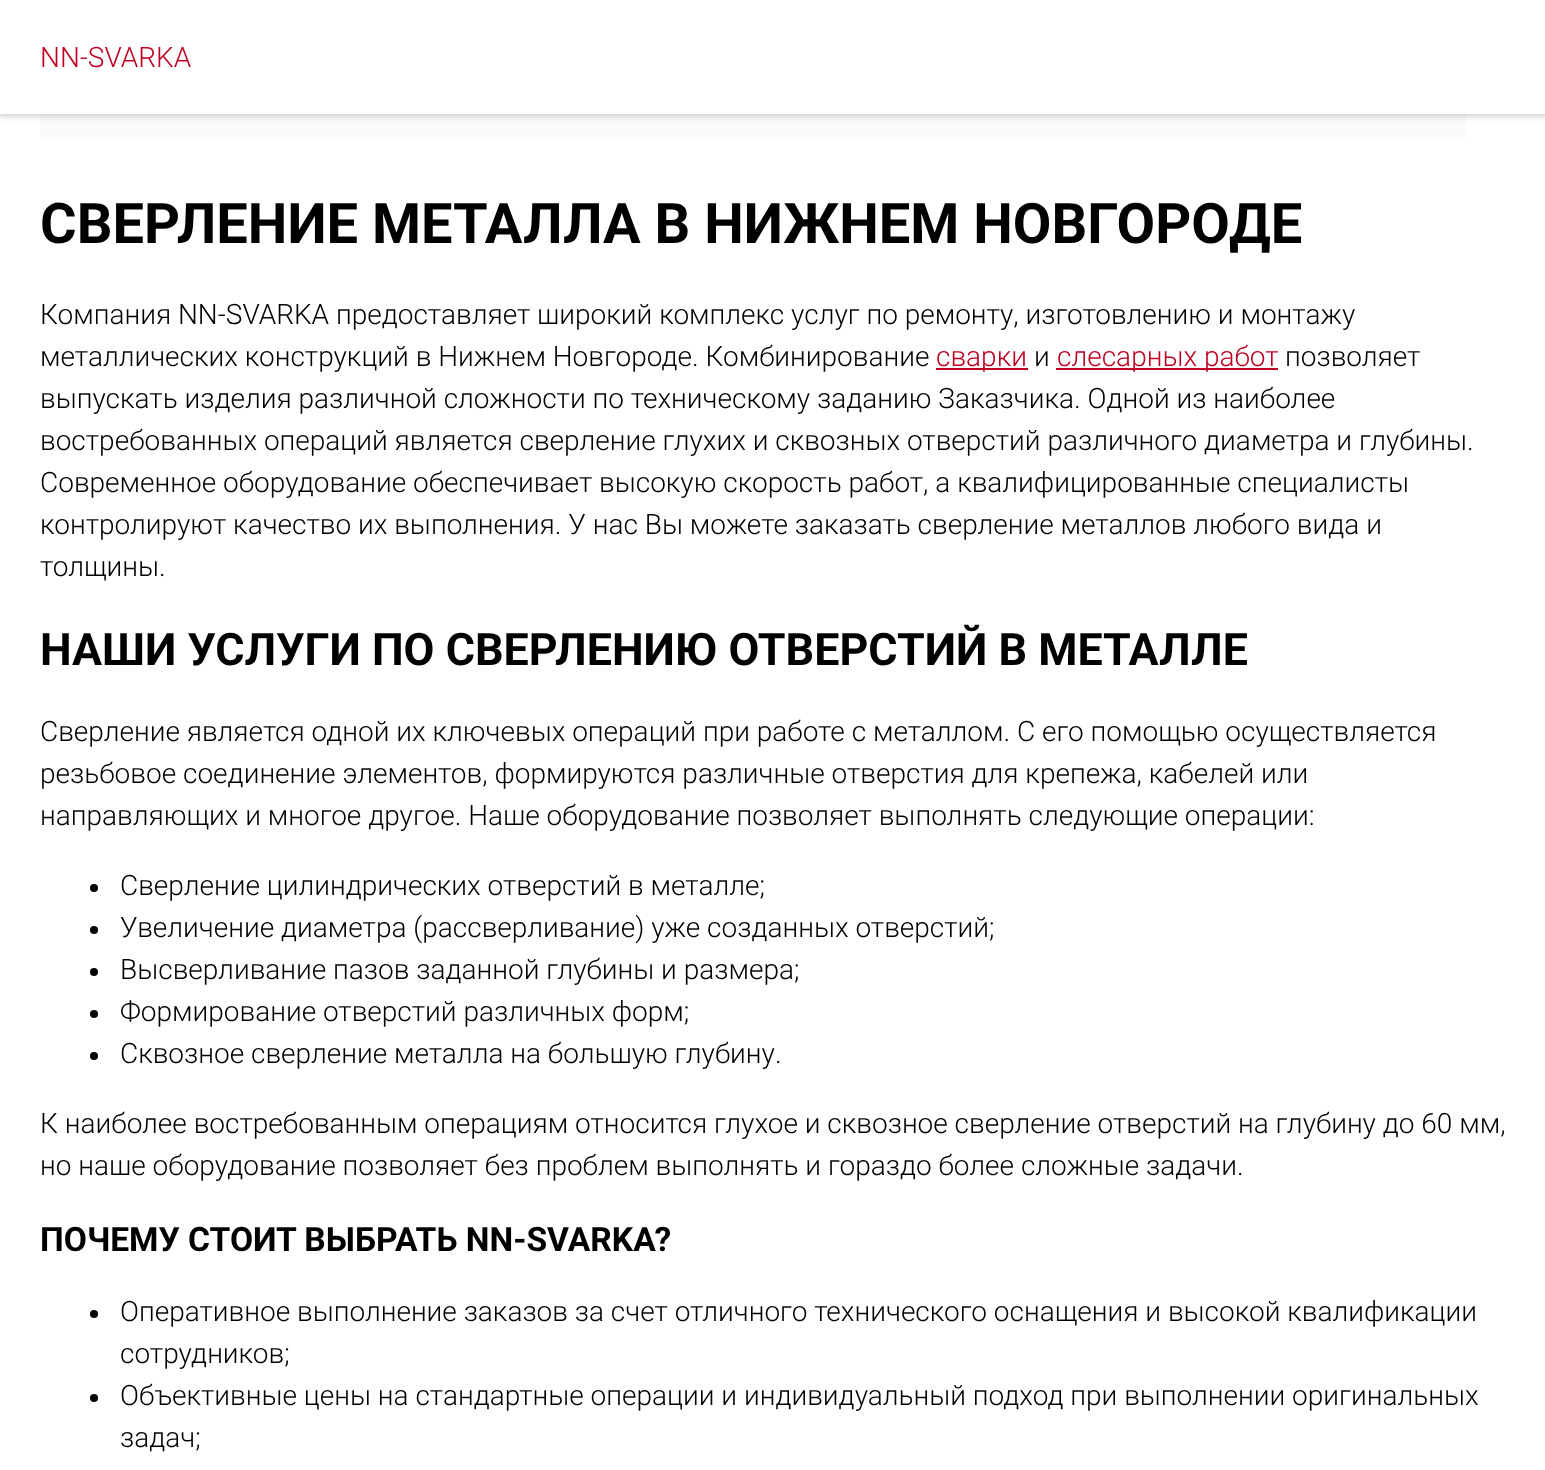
<svg xmlns="http://www.w3.org/2000/svg" width="1545" height="1470">
	<rect width="100%" height="100%" fill="#FFFFFF" />
	<rect x="40" y="114" width="1426" height="24" fill="#FAFAFA" />
	<rect x="-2" y="-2" width="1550" height="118" fill="#000000" fill-opacity="0.2" filter="blur(3px)" />
	<rect x="0" y="0" width="1545" height="114" fill="#FFFFFF" />
	<text x="40" y="67" font-family="Roboto" font-size="28" font-weight="300" fill="#BD0021">NN-SVARKA</text>
	<text x="40" y="243" font-family="Roboto" font-size="56" font-weight="700" fill="#000000">СВЕРЛЕНИЕ МЕТАЛЛА В НИЖНЕМ НОВГОРОДЕ</text>
	<g font-family="Roboto" font-size="28" font-weight="300" fill="#000000">
		<text x="40" y="324">Компания NN-SVARKA предоставляет широкий комплекс услуг по ремонту, изготовлению и монтажу</text>
		<text x="40" y="366">металлических конструкций в Нижнем Новгороде. Комбинирование</text>
	</g>
	<rect x="936" y="368" width="92" height="2" fill="#BD0021" />
	<text x="936" y="366" font-family="Roboto" font-size="28" font-weight="300" fill="#BD0021">сварки</text>
	<text x="1034" y="366" font-family="Roboto" font-size="28" font-weight="300" fill="#000000">и</text>
	<rect x="1056" y="368" width="222" height="2" fill="#BD0021" />
	<text x="1057" y="366" font-family="Roboto" font-size="28" font-weight="300" fill="#BD0021">слесарных работ</text>
	<g font-family="Roboto" font-size="28" font-weight="300" fill="#000000">
		<text x="1285" y="366">позволяет</text>
		<text x="40" y="408">выпускать изделия различной сложности по техническому заданию Заказчика. Одной из наиболее</text>
		<text x="40" y="450">востребованных операций является сверление глухих и сквозных отверстий различного диаметра и глубины.</text>
		<text x="40" y="492">Современное оборудование обеспечивает высокую скорость работ, а квалифицированные специалисты</text>
		<text x="40" y="534">контролируют качество их выполнения. У нас Вы можете заказать сверление металлов любого вида и</text>
		<text x="40" y="576">толщины.</text>
	</g>
	<text x="40" y="665" font-family="Roboto" font-size="44.8" font-weight="700" fill="#000000">НАШИ УСЛУГИ ПО СВЕРЛЕНИЮ ОТВЕРСТИЙ В МЕТАЛЛЕ</text>
	<g font-family="Roboto" font-size="28" font-weight="300" fill="#000000">
		<text x="40" y="741">Сверление является одной их ключевых операций при работе с металлом. С его помощью осуществляется</text>
		<text x="40" y="783">резьбовое соединение элементов, формируются различные отверстия для крепежа, кабелей или</text>
		<text x="40" y="825">направляющих и многое другое. Наше оборудование позволяет выполнять следующие операции:</text>
	</g>
	<circle cx="94" cy="888" r="4" fill="#000000" />
	<text x="120" y="895" font-family="Roboto" font-size="28" font-weight="300" fill="#000000">Сверление цилиндрических отверстий в металле;</text>
	<circle cx="94" cy="930" r="4" fill="#000000" />
	<text x="120" y="937" font-family="Roboto" font-size="28" font-weight="300" fill="#000000">Увеличение диаметра (рассверливание) уже созданных отверстий;</text>
	<circle cx="94" cy="972" r="4" fill="#000000" />
	<text x="120" y="979" font-family="Roboto" font-size="28" font-weight="300" fill="#000000">Высверливание пазов заданной глубины и размера;</text>
	<circle cx="94" cy="1014" r="4" fill="#000000" />
	<text x="120" y="1021" font-family="Roboto" font-size="28" font-weight="300" fill="#000000">Формирование отверстий различных форм;</text>
	<circle cx="94" cy="1056" r="4" fill="#000000" />
	<g font-family="Roboto" font-size="28" font-weight="300" fill="#000000">
		<text x="120" y="1063">Сквозное сверление металла на большую глубину.</text>
		<text x="40" y="1133">К наиболее востребованным операциям относится глухое и сквозное сверление отверстий на глубину до 60 мм,</text>
		<text x="40" y="1175">но наше оборудование позволяет без проблем выполнять и гораздо более сложные задачи.</text>
	</g>
	<text x="40" y="1251" font-family="Roboto" font-size="33.6" font-weight="700" fill="#000000">ПОЧЕМУ СТОИТ ВЫБРАТЬ NN-SVARKA?</text>
	<circle cx="94" cy="1314" r="4" fill="#000000" />
	<g font-family="Roboto" font-size="28" font-weight="300" fill="#000000">
		<text x="120" y="1321">Оперативное выполнение заказов за счет отличного технического оснащения и высокой квалификации</text>
		<text x="120" y="1363">сотрудников;</text>
	</g>
	<circle cx="94" cy="1398" r="4" fill="#000000" />
	<g font-family="Roboto" font-size="28" font-weight="300" fill="#000000">
		<text x="120" y="1405">Объективные цены на стандартные операции и индивидуальный подход при выполнении оригинальных</text>
		<text x="120" y="1447">задач;</text>
	</g>
</svg>
